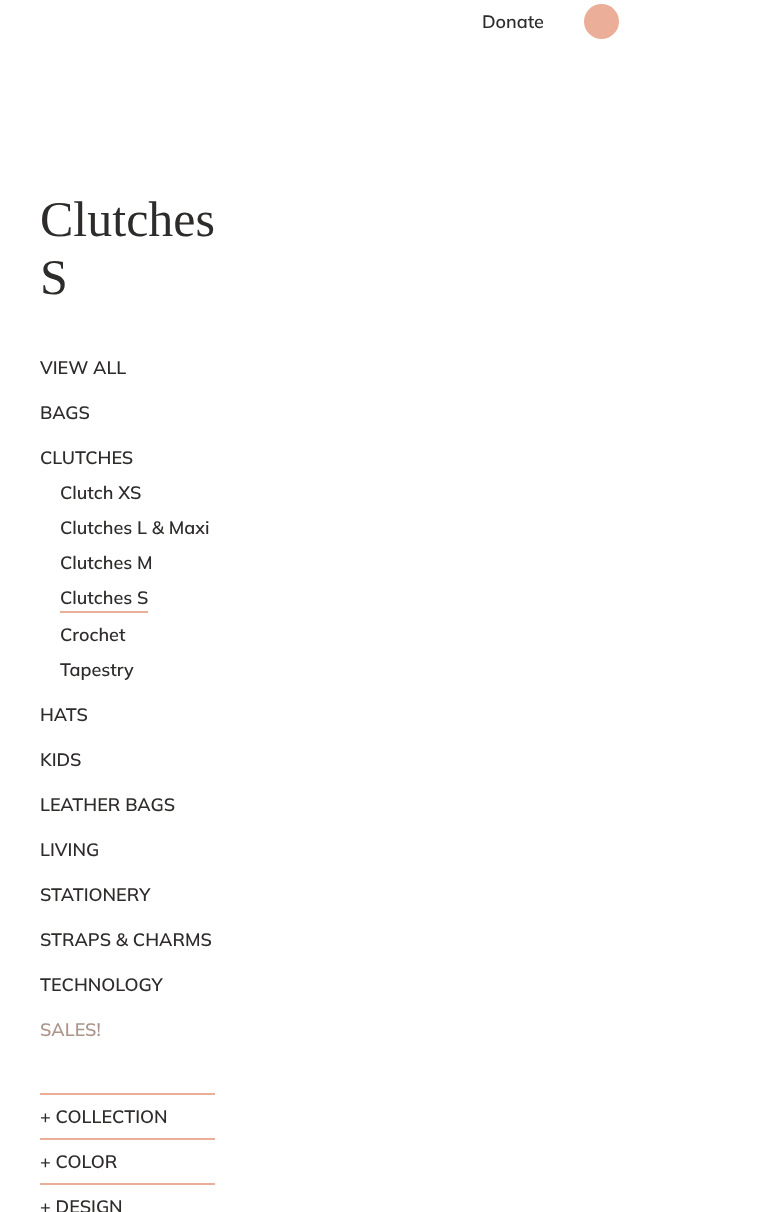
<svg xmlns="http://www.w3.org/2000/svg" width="774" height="1212">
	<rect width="100%" height="100%" fill="#FFFFFF" />
	<text x="482" y="28" font-family="Mulish" font-size="18" font-weight="600" fill="#2E2C2B">Donate</text>
	<circle cx="601.5" cy="21.5" r="17.5" fill="#EBAE98" />
	<g font-family="Liberation Serif" font-size="50" fill="#2E2C2B">
		<text x="40" y="236">Clutches</text>
		<text x="40" y="294">S</text>
	</g>
	<g font-family="Mulish" font-size="18" font-weight="600" fill="#2E2C2B">
		<text x="40" y="374">VIEW ALL</text>
		<text x="40" y="419">BAGS</text>
		<text x="40" y="464">CLUTCHES</text>
		<text x="60" y="499">Clutch XS</text>
		<text x="60" y="534">Clutches L &amp; Maxi</text>
		<text x="60" y="569">Clutches M</text>
	</g>
	<rect x="60" y="611" width="88" height="2" fill="#EBAE98" />
	<g font-family="Mulish" font-size="18" font-weight="600" fill="#2E2C2B">
		<text x="60" y="604">Clutches S</text>
		<text x="60" y="641">Crochet</text>
		<text x="60" y="676">Tapestry</text>
		<text x="40" y="721">HATS</text>
		<text x="40" y="766">KIDS</text>
		<text x="40" y="811">LEATHER BAGS</text>
		<text x="40" y="856">LIVING</text>
		<text x="40" y="901">STATIONERY</text>
		<text x="40" y="946">STRAPS &amp; CHARMS</text>
		<text x="40" y="991">TECHNOLOGY</text>
	</g>
	<text x="40" y="1036" font-family="Mulish" font-size="18" font-weight="600" fill="#AD958C">SALES!</text>
	<rect x="40" y="1093" width="175" height="2" fill="#EBAE98" />
	<text x="40" y="1123" font-family="Mulish" font-size="18" font-weight="600" fill="#2E2C2B">+ COLLECTION</text>
	<rect x="40" y="1138" width="175" height="2" fill="#EBAE98" />
	<text x="40" y="1168" font-family="Mulish" font-size="18" font-weight="600" fill="#2E2C2B">+ COLOR</text>
	<rect x="40" y="1183" width="175" height="2" fill="#EBAE98" />
	<text x="40" y="1213" font-family="Mulish" font-size="18" font-weight="600" fill="#2E2C2B">+ DESIGN</text>
</svg>
